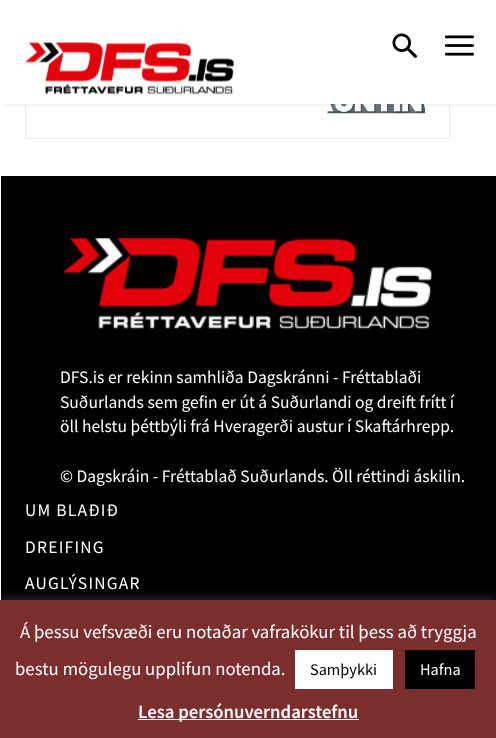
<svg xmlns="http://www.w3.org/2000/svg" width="496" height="738">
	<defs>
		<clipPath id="clip1"><rect x="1" y="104" width="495" height="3" /></clipPath>
	</defs>
	<rect width="100%" height="100%" fill="#FFFFFF" />
	<rect x="25.5" y="-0.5" width="424" height="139" fill="none" stroke="#EAEAEA" />
	<image x="327" y="104" width="98" height="10" href="assets/img1.png" />
	<rect x="25" y="0" width="425" height="104" fill="#FFFFFF" />
	<image x="25" y="42" width="209" height="53" href="assets/img2.png" />
	<image x="392" y="33" width="25" height="25" href="assets/img3.png" />
	<image x="445" y="35" width="29" height="21" href="assets/img4.png" />
	<g clip-path="url(#clip1)">
		<rect x="1" y="3" width="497" height="103" fill="#000000" fill-opacity="0.06" filter="blur(2.5px)" />
	</g>
	<rect x="1" y="176" width="495" height="424" fill="#000000" />
	<image x="62" y="238" width="371" height="91" href="assets/img5.png" />
	<g font-family="Source Sans Pro" font-size="17.5" fill="#FFFFFF">
		<text x="60" y="383">DFS.is er rekinn samhliða Dagskránni - Fréttablaði</text>
		<text x="60" y="408">Suðurlands sem gefin er út á Suðurlandi og dreift frítt í</text>
		<text x="60" y="432">öll helstu þéttbýli frá Hveragerði austur í Skaftárhrepp.</text>
		<text x="60" y="482">© Dagskráin - Fréttablað Suðurlands. Öll réttindi áskilin.</text>
	</g>
	<g font-family="Source Sans Pro" font-size="17.5" letter-spacing="1.25" fill="#FFFFFF">
		<text x="25" y="516">UM BLAÐIÐ</text>
		<text x="25" y="553">DREIFING</text>
		<text x="25" y="589">AUGLÝSINGAR</text>
	</g>
	<rect x="0" y="599" width="496" height="139" fill="#ACABAB" fill-opacity="0.3" filter="blur(6px)" />
	<rect x="0" y="600" width="496" height="138" fill="#7B2F2C" />
	<g font-family="Source Sans Pro" font-size="18.75" fill="#FFFFFF">
		<text x="20" y="638">Á þessu vefsvæði eru notaðar vafrakökur til þess að tryggja</text>
		<text x="15" y="675">bestu mögulegu upplifun notenda.</text>
	</g>
	<rect x="295" y="650" width="98" height="39" fill="#FFFFFF" />
	<text x="310" y="675" font-family="Source Sans Pro" font-size="16.25" fill="#000000">Samþykki</text>
	<rect x="405" y="650" width="70" height="39" fill="#000000" />
	<text x="420" y="675" font-family="Source Sans Pro" font-size="16.25" fill="#FFFFFF">Hafna</text>
	<rect x="138" y="719" width="221" height="1" fill="#FFFFFF" />
	<text x="138" y="718" font-family="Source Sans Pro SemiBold" font-size="18.75" font-weight="600" fill="#FFFFFF">Lesa persónuverndarstefnu</text>
</svg>
